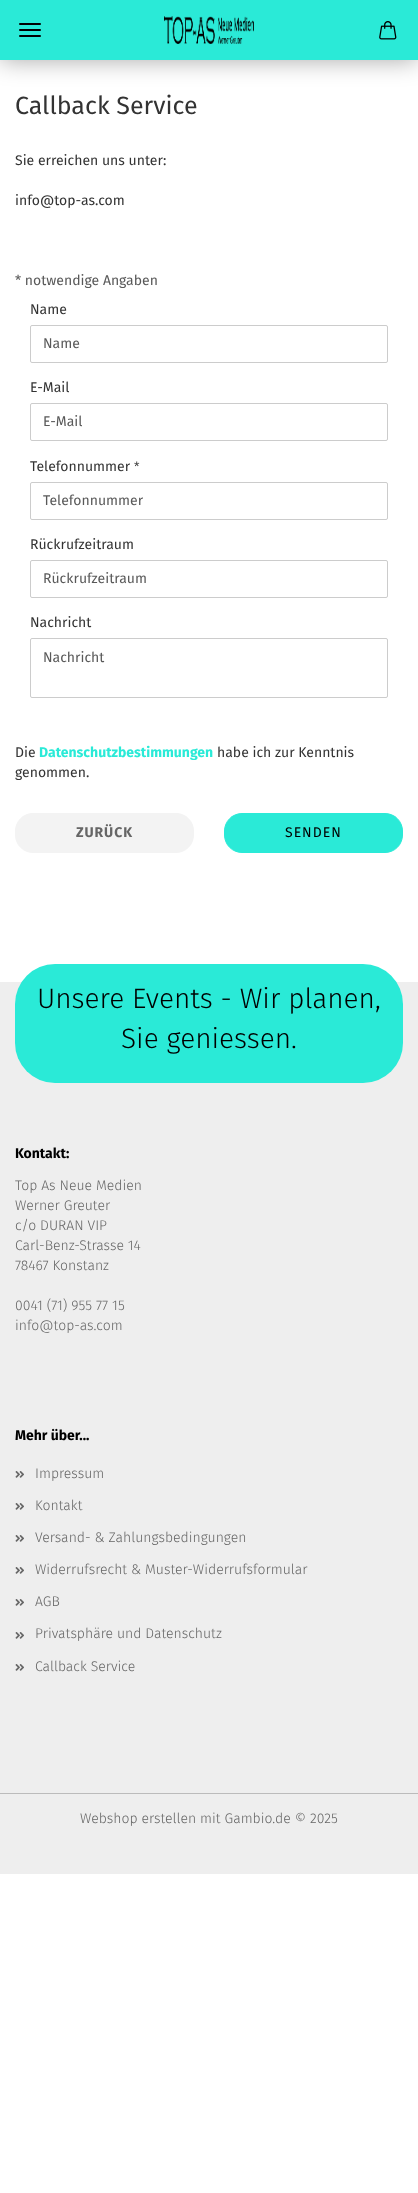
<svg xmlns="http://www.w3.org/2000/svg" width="418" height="2193">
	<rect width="100%" height="100%" fill="#FFFFFF" />
	<rect x="0" y="0" width="418" height="60" fill="#000000" fill-opacity="0.35" filter="blur(12.5px)" />
	<rect x="0" y="0" width="418" height="60" fill="#2AEAD7" />
	<image x="164" y="16" width="90" height="28" href="assets/img1.png" />
	<image x="379" y="21" width="18" height="19" href="assets/img2.png" />
	<rect x="19" y="29" width="22" height="2" rx="1" fill="#000000" />
	<rect x="19" y="23" width="22" height="2" rx="1" fill="#000000" />
	<rect x="19" y="35" width="22" height="2" rx="1" fill="#000000" />
	<text x="15" y="114" font-family="Fira Sans" font-size="25" fill="#333333">Callback Service</text>
	<g font-family="Fira Sans" font-size="14" fill="#333333">
		<text x="15" y="165">Sie erreichen uns unter:</text>
		<text x="15" y="205">info@top-as.com</text>
	</g>
	<text x="15" y="285" font-family="Fira Sans" font-size="14" fill="#595959">* notwendige Angaben</text>
	<text x="30" y="314" font-family="Fira Sans" font-size="14" fill="#333333">Name</text>
	<rect x="30.5" y="325.5" width="357" height="37" rx="1.5" fill="none" stroke="#CCCCCC" />
	<text x="43" y="348" font-family="Fira Sans" font-size="14" fill="#595959">Name</text>
	<text x="30" y="392" font-family="Fira Sans" font-size="14" fill="#333333">E-Mail</text>
	<rect x="30.5" y="403.5" width="357" height="37" rx="1.5" fill="none" stroke="#CCCCCC" />
	<text x="43" y="426" font-family="Fira Sans" font-size="14" fill="#595959">E-Mail</text>
	<text x="30" y="471" font-family="Fira Sans" font-size="14" fill="#333333">Telefonnummer</text>
	<text x="134" y="471" font-family="Liberation Sans" font-size="14" fill="#333333">*</text>
	<rect x="30.5" y="482.5" width="357" height="37" rx="1.5" fill="none" stroke="#CCCCCC" />
	<text x="43" y="505" font-family="Fira Sans" font-size="14" fill="#595959">Telefonnummer</text>
	<text x="30" y="549" font-family="Fira Sans" font-size="14" fill="#333333">Rückrufzeitraum</text>
	<rect x="30.5" y="560.5" width="357" height="37" rx="1.5" fill="none" stroke="#CCCCCC" />
	<text x="43" y="583" font-family="Fira Sans" font-size="14" fill="#595959">Rückrufzeitraum</text>
	<text x="30" y="627" font-family="Fira Sans" font-size="14" fill="#333333">Nachricht</text>
	<rect x="30.5" y="638.5" width="357" height="59" rx="1.5" fill="none" stroke="#CCCCCC" />
	<text x="43" y="662" font-family="Fira Sans" font-size="14" fill="#595959">Nachricht</text>
	<text x="15" y="757" font-family="Fira Sans" font-size="14" fill="#333333">Die</text>
	<text x="39" y="757" font-family="Fira Sans" font-size="14" font-weight="700" fill="#2AEAD7">Datenschutzbestimmungen</text>
	<g font-family="Fira Sans" font-size="14" fill="#333333">
		<text x="217" y="757">habe ich zur Kenntnis</text>
		<text x="15" y="777">genommen.</text>
	</g>
	<rect x="15.5" y="813.5" width="178" height="39" rx="17.5" fill="#F3F3F3" stroke="#F3F3F3" />
	<text x="76" y="837" font-family="Fira Sans" font-size="14" font-weight="700" letter-spacing="1" fill="#666666">ZURÜCK</text>
	<rect x="224.5" y="813.5" width="178" height="39" rx="17.5" fill="#2AEAD7" stroke="#2AEAD7" />
	<text x="285" y="837" font-family="Fira Sans" font-size="14" letter-spacing="1" fill="#000000">SENDEN</text>
	<rect x="0" y="982" width="418" height="892" fill="#EEEEEE" />
	<rect x="15" y="964" width="388" height="119" rx="40" fill="#2AEAD7" />
	<g font-family="Fira Sans" font-size="28" font-weight="300" fill="#000000">
		<text x="37" y="1008">Unsere Events - Wir planen,</text>
		<text x="121" y="1048">Sie geniessen.</text>
	</g>
	<rect x="0" y="1793" width="418" height="1" fill="#BBBBBB" />
	<text x="15" y="1158" font-family="Fira Sans" font-size="14" font-weight="700" fill="#000000">Kontakt:</text>
	<g font-family="Fira Sans" font-size="14" font-weight="300" fill="#666666">
		<text x="15" y="1190">Top As Neue Medien</text>
		<text x="15" y="1210">Werner Greuter</text>
		<text x="15" y="1230">c/o DURAN VIP</text>
		<text x="15" y="1250">Carl-Benz-Strasse 14</text>
		<text x="15" y="1270">78467 Konstanz</text>
		<text x="15" y="1310">0041 (71) 955 77 15</text>
		<text x="15" y="1330">info@top-as.com</text>
	</g>
	<text x="15" y="1440" font-family="Fira Sans" font-size="14" font-weight="700" fill="#000000">Mehr über...</text>
	<image x="15" y="1471" width="9" height="7" href="assets/img3.png" />
	<text x="35" y="1478" font-family="Fira Sans" font-size="14" font-weight="300" fill="#666666">Impressum</text>
	<image x="15" y="1503" width="9" height="7" href="assets/img3.png" />
	<text x="35" y="1510" font-family="Fira Sans" font-size="14" font-weight="300" fill="#666666">Kontakt</text>
	<image x="15" y="1535" width="9" height="7" href="assets/img3.png" />
	<text x="35" y="1542" font-family="Fira Sans" font-size="14" font-weight="300" fill="#666666">Versand- &amp; Zahlungsbedingungen</text>
	<image x="15" y="1567" width="9" height="7" href="assets/img3.png" />
	<text x="35" y="1574" font-family="Fira Sans" font-size="14" font-weight="300" fill="#666666">Widerrufsrecht &amp; Muster-Widerrufsformular</text>
	<image x="15" y="1599" width="9" height="7" href="assets/img3.png" />
	<text x="35" y="1606" font-family="Fira Sans" font-size="14" font-weight="300" fill="#666666">AGB</text>
	<image x="15" y="1632" width="9" height="7" href="assets/img3.png" />
	<text x="35" y="1638" font-family="Fira Sans" font-size="14" font-weight="300" fill="#666666">Privatsphäre und Datenschutz</text>
	<image x="15" y="1664" width="9" height="7" href="assets/img3.png" />
	<g font-family="Fira Sans" font-size="14" font-weight="300" fill="#666666">
		<text x="35" y="1671">Callback Service</text>
		<text x="80" y="1823">Webshop erstellen mit Gambio.de © 2025</text>
	</g>
</svg>
